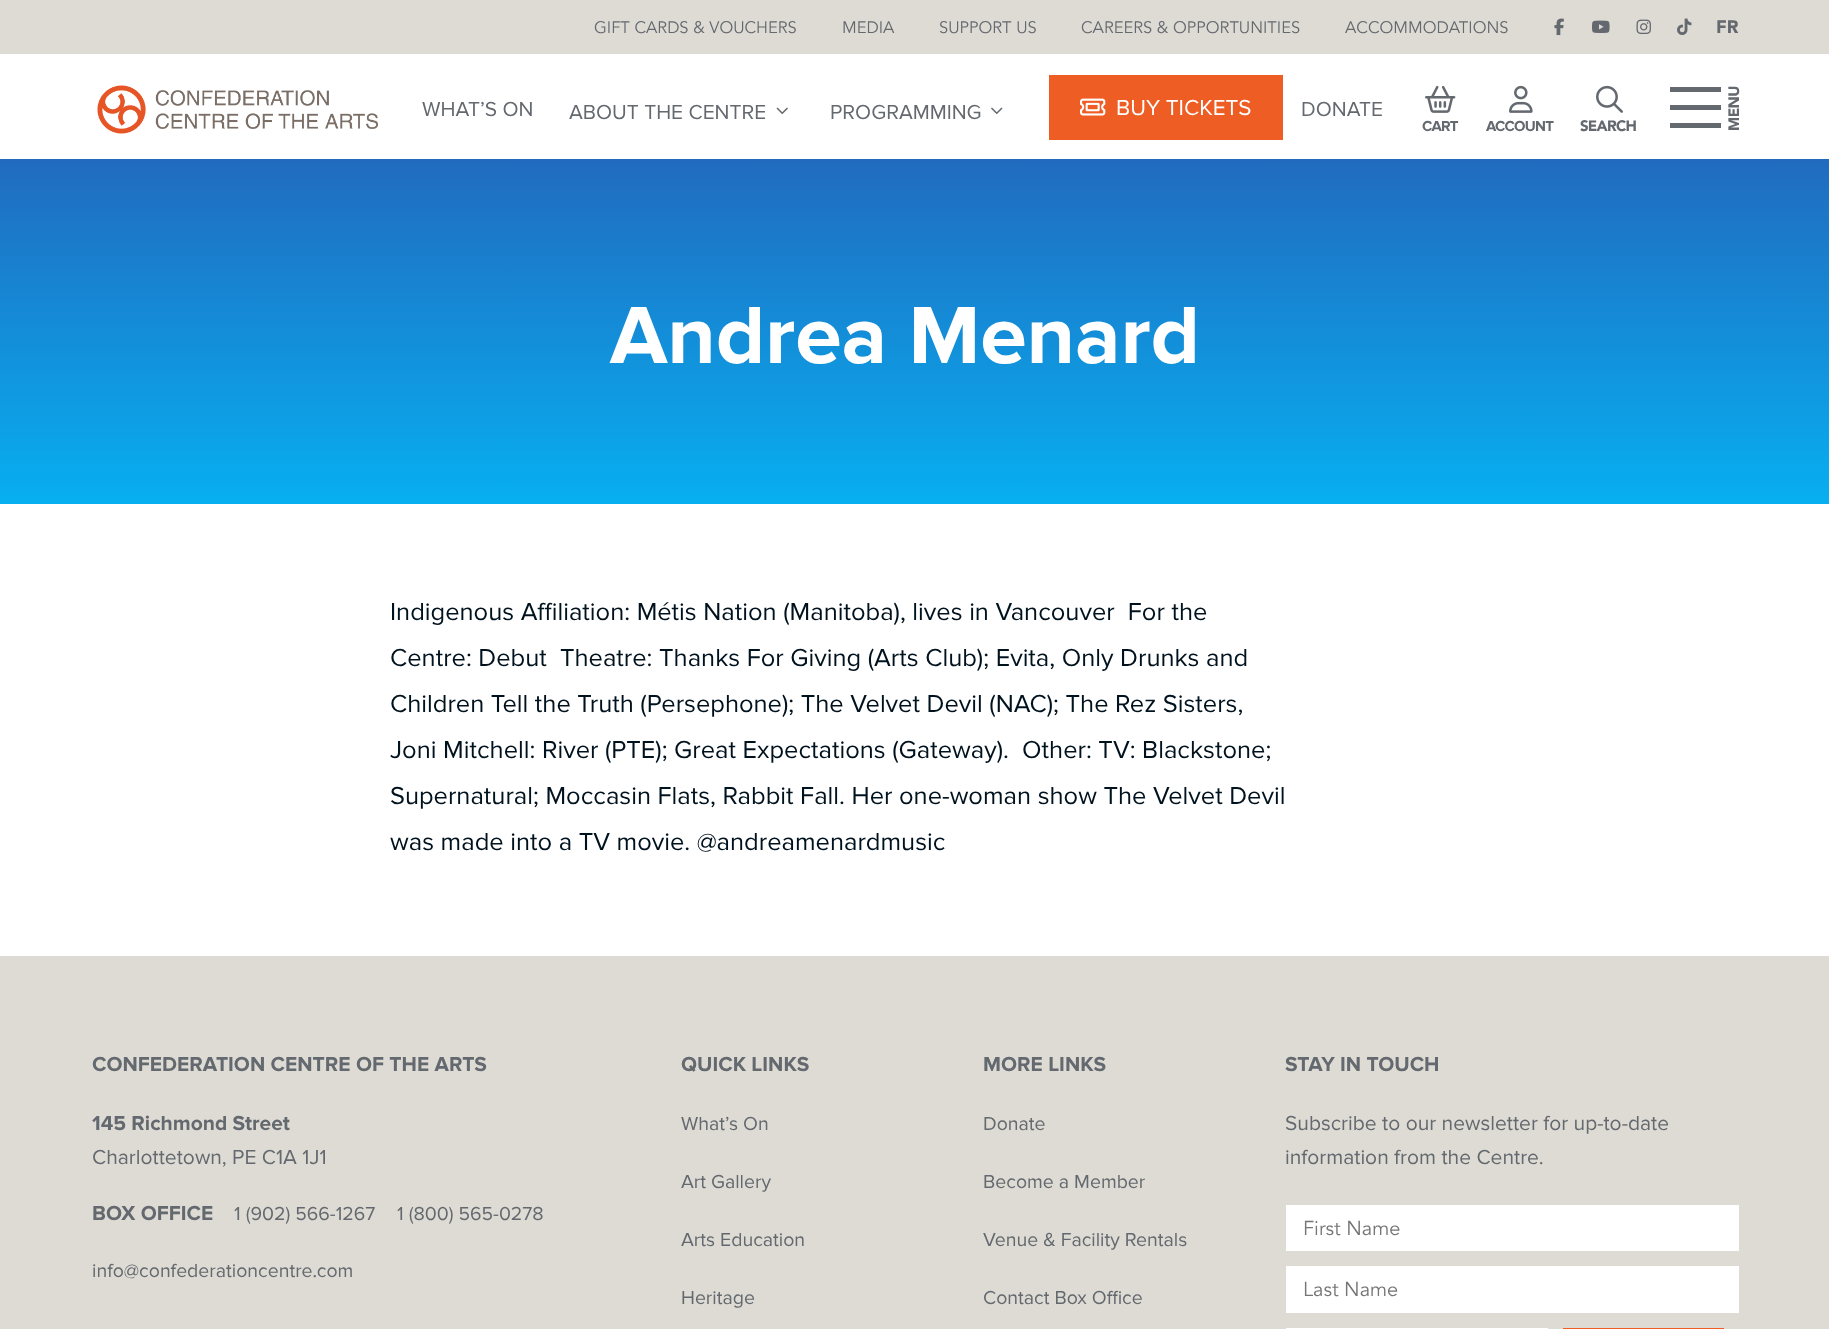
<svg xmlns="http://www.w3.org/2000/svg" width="1829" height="1329">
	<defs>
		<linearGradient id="g1" gradientUnits="userSpaceOnUse" x1="915" y1="159" x2="915" y2="504"><stop offset="0" stop-color="#216BBF" /><stop offset="1" stop-color="#07AFF1" /></linearGradient>
	</defs>
	<rect width="100%" height="100%" fill="#FFFFFF" />
	<rect x="0" y="0" width="1829" height="54" fill="#DEDBD4" />
	<g font-family="Avenir" font-size="16.5" fill="#64696F">
		<text x="594" y="33">GIFT CARDS &amp; VOUCHERS</text>
		<text x="842" y="33">MEDIA</text>
		<text x="939" y="33">SUPPORT US</text>
		<text x="1081" y="33">CAREERS &amp; OPPORTUNITIES</text>
		<text x="1345" y="33">ACCOMMODATIONS</text>
	</g>
	<image x="1554" y="18" width="10" height="18" href="assets/img1.png" />
	<image x="1592" y="20" width="18" height="13" href="assets/img2.png" />
	<image x="1636" y="19" width="15" height="15" href="assets/img3.png" />
	<image x="1677" y="18" width="15" height="17" href="assets/img4.png" />
	<text x="1716" y="33" font-family="Avenir" font-size="18" font-weight="900" fill="#64696F">FR</text>
	<image x="97" y="85" width="281" height="49" href="assets/img5.png" />
	<g font-family="Proxima Nova" font-size="21" fill="#64696F">
		<text x="422" y="116">WHAT’S ON</text>
		<text x="569" y="119">ABOUT THE CENTRE</text>
	</g>
	<image x="776" y="107" width="12" height="7" href="assets/img6.png" />
	<text x="830" y="119" font-family="Proxima Nova" font-size="21" fill="#64696F">PROGRAMMING</text>
	<image x="991" y="107" width="12" height="7" href="assets/img7.png" />
	<rect x="1049" y="75" width="234" height="65" fill="#EE5D23" />
	<image x="1080" y="98" width="26" height="18" href="assets/img8.png" />
	<text x="1116" y="115" font-family="Proxima Nova" font-size="22.5" fill="#FFFFFF">BUY TICKETS</text>
	<text x="1301" y="116" font-family="Proxima Nova" font-size="21" fill="#64696F">DONATE</text>
	<image x="1425" y="85" width="31" height="28" href="assets/img9.png" />
	<text x="1422" y="131" font-family="Proxima Nova" font-size="15" font-weight="700" letter-spacing="-0.75" fill="#64696F">CART</text>
	<image x="1509" y="85" width="24" height="28" href="assets/img10.png" />
	<text x="1486" y="131" font-family="Proxima Nova" font-size="15" font-weight="700" letter-spacing="-0.75" fill="#64696F">ACCOUNT</text>
	<image x="1596" y="85" width="27" height="28" href="assets/img11.png" />
	<text x="1580" y="131" font-family="Avenir" font-size="15" font-weight="900" letter-spacing="-0.75" fill="#64696F">SEARCH</text>
	<rect x="1670" y="87" width="51" height="5" fill="#64696F" />
	<text x="1739" y="131" transform="rotate(-90 1739 131)" font-family="Avenir" font-size="15" font-weight="900" letter-spacing="-0.5" fill="#64696F">MENU</text>
	<rect x="1670" y="105" width="51" height="5" fill="#64696F" />
	<rect x="1670" y="123" width="51" height="5" fill="#64696F" />
	<rect x="0" y="159" width="1829" height="345" fill="url(#g1)" />
	<text x="610" y="363" font-family="Proxima Nova" font-size="84" font-weight="700" letter-spacing="-0.1" fill="#FFFFFF">Andrea Menard</text>
	<g font-family="Proxima Nova" font-size="25.5" fill="#00121E">
		<text x="390" y="620" xml:space="preserve">Indigenous Affiliation: Métis Nation (Manitoba), lives in Vancouver  For the</text>
		<text x="390" y="666" xml:space="preserve">Centre: Debut  Theatre: Thanks For Giving (Arts Club); Evita, Only Drunks and</text>
		<text x="390" y="712">Children Tell the Truth (Persephone); The Velvet Devil (NAC); The Rez Sisters,</text>
		<text x="390" y="758" xml:space="preserve">Joni Mitchell: River (PTE); Great Expectations (Gateway).  Other: TV: Blackstone;</text>
		<text x="390" y="804">Supernatural; Moccasin Flats, Rabbit Fall. Her one-woman show The Velvet Devil</text>
		<text x="390" y="850">was made into a TV movie. @andreamenardmusic</text>
	</g>
	<rect x="0" y="956" width="1829" height="373" fill="#DDDBD4" />
	<g font-family="Proxima Nova" font-size="21" font-weight="700" fill="#64696F">
		<text x="92" y="1071">CONFEDERATION CENTRE OF THE ARTS</text>
		<text x="92" y="1130">145 Richmond Street</text>
	</g>
	<text x="92" y="1164" font-family="Proxima Nova" font-size="21" fill="#64696F">Charlottetown, PE C1A 1J1</text>
	<text x="92" y="1220" font-family="Proxima Nova" font-size="21" font-weight="700" fill="#64696F">BOX OFFICE</text>
	<g font-family="Proxima Nova" font-size="19.5" fill="#64696F">
		<text x="234" y="1220">1 (902) 566-1267</text>
		<text x="397" y="1220">1 (800) 565-0278</text>
		<text x="92" y="1277">info@confederationcentre.com</text>
	</g>
	<text x="681" y="1071" font-family="Proxima Nova" font-size="21" font-weight="700" fill="#64696F">QUICK LINKS</text>
	<g font-family="Proxima Nova" font-size="19.5" fill="#64696F">
		<text x="681" y="1130">What’s On</text>
		<text x="681" y="1188">Art Gallery</text>
		<text x="681" y="1246">Arts Education</text>
		<text x="681" y="1304">Heritage</text>
	</g>
	<text x="983" y="1071" font-family="Proxima Nova" font-size="21" font-weight="700" fill="#64696F">MORE LINKS</text>
	<g font-family="Proxima Nova" font-size="19.5" fill="#64696F">
		<text x="983" y="1130">Donate</text>
		<text x="983" y="1188">Become a Member</text>
		<text x="983" y="1246">Venue &amp; Facility Rentals</text>
		<text x="983" y="1304">Contact Box Office</text>
	</g>
	<text x="1285" y="1071" font-family="Proxima Nova" font-size="21" font-weight="700" fill="#64696F">STAY IN TOUCH</text>
	<g font-family="Proxima Nova" font-size="21" fill="#64696F">
		<text x="1285" y="1130">Subscribe to our newsletter for up-to-date</text>
		<text x="1285" y="1164">information from the Centre.</text>
	</g>
	<rect x="1286" y="1205" width="453" height="46" fill="#FFFFFF" />
	<text x="1303" y="1235" font-family="Avenir" font-size="20" fill="#757575">First Name</text>
	<rect x="1286" y="1266" width="453" height="47" fill="#FFFFFF" />
	<text x="1303" y="1296" font-family="Avenir" font-size="20" fill="#757575">Last Name</text>
	<rect x="1286" y="1328" width="262" height="1" fill="#FFFFFF" />
	<rect x="1563" y="1328" width="161" height="1" fill="#EE5E23" />
</svg>
